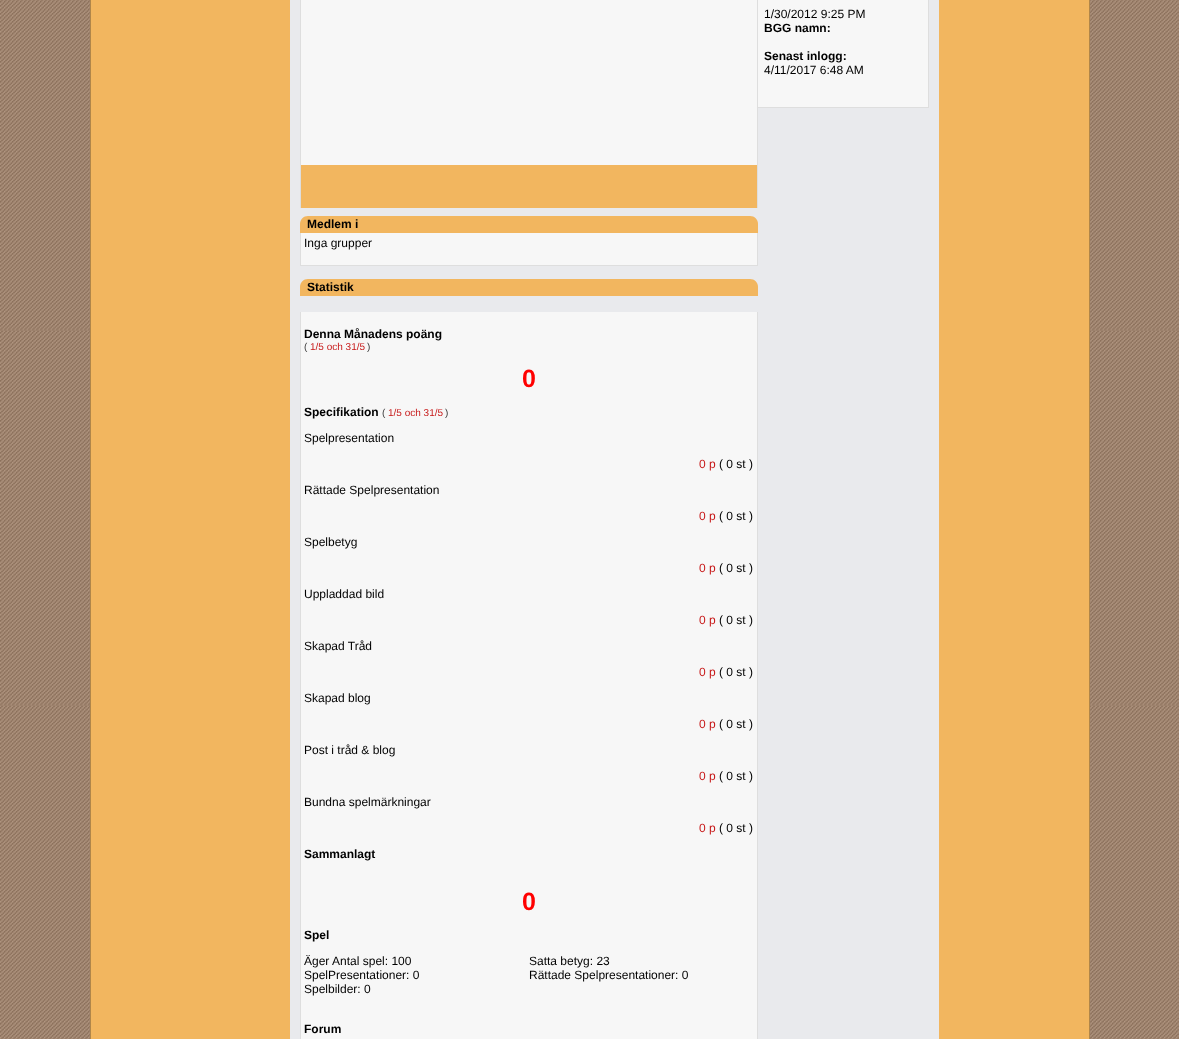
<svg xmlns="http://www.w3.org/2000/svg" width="1179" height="1039">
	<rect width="100%" height="100%" fill="#FFFFFF" />
	<image x="0" y="0" width="1179" height="1039" href="assets/img1.png" />
	<rect x="91" y="0" width="998" height="1039" fill="#F2B65F" />
	<rect x="1089" y="0" width="1" height="1039" fill="#B0864A" />
	<rect x="90" y="0" width="1" height="1039" fill="#B0864A" />
	<rect x="290" y="0" width="649" height="1039" fill="#E9EAED" />
	<rect x="928" y="0" width="1" height="108" fill="#DEDEDE" />
	<rect x="758" y="107" width="171" height="1" fill="#DEDEDE" />
	<rect x="758" y="0" width="170" height="107" fill="#F7F7F7" />
	<text x="764" y="18" font-family="Liberation Sans" font-size="12" fill="#000000">1/30/2012 9:25 PM</text>
	<g font-family="Liberation Sans" font-size="12" font-weight="700" fill="#000000">
		<text x="764" y="32">BGG namn:</text>
		<text x="764" y="60">Senast inlogg:</text>
	</g>
	<text x="764" y="74" font-family="Liberation Sans" font-size="12" fill="#000000">4/11/2017 6:48 AM</text>
	<rect x="301" y="0" width="456" height="165" fill="#F7F7F7" />
	<rect x="757" y="0" width="1" height="208" fill="#DEDEDE" />
	<rect x="300" y="0" width="1" height="208" fill="#DEDEDE" />
	<rect x="301" y="165" width="456" height="43" fill="#F2B65F" />
	<path d="M308 216H750C754.5 216 758 219.5 758 224V233H300V224C300 219.5 303.5 216 308 216Z" fill="#F2B65F" />
	<text x="307" y="228" font-family="Liberation Sans" font-size="12" font-weight="700" fill="#000000">Medlem i</text>
	<rect x="301" y="233" width="456" height="32" fill="#F7F7F7" />
	<rect x="757" y="233" width="1" height="33" fill="#DEDEDE" />
	<rect x="300" y="265" width="458" height="1" fill="#DEDEDE" />
	<rect x="300" y="233" width="1" height="33" fill="#DEDEDE" />
	<text x="304" y="247" font-family="Liberation Sans" font-size="12" fill="#000000">Inga grupper</text>
	<path d="M308 279H750C754.5 279 758 282.5 758 287V296H300V287C300 282.5 303.5 279 308 279Z" fill="#F2B65F" />
	<text x="307" y="291" font-family="Liberation Sans" font-size="12" font-weight="700" fill="#000000">Statistik</text>
	<rect x="301" y="312" width="456" height="727" fill="#F7F7F7" />
	<rect x="757" y="312" width="1" height="727" fill="#DEDEDE" />
	<rect x="300" y="312" width="1" height="727" fill="#DEDEDE" />
	<text x="304" y="338" font-family="Liberation Sans" font-size="12" font-weight="700" fill="#000000">Denna Månadens poäng</text>
	<text x="304" y="350" font-family="Liberation Sans" font-size="10" fill="#353535">(</text>
	<text x="310" y="350" font-family="Liberation Sans" font-size="10" fill="#C71919">1/5 och 31/5</text>
	<text x="367" y="350" font-family="Liberation Sans" font-size="10" fill="#353535">)</text>
	<text x="522" y="387" font-family="Liberation Sans" font-size="25" font-weight="700" fill="#FF0000">0</text>
	<text x="304" y="416" font-family="Liberation Sans" font-size="12" font-weight="700" fill="#000000">Specifikation</text>
	<text x="382" y="416" font-family="Liberation Sans" font-size="10" fill="#353535">(</text>
	<text x="388" y="416" font-family="Liberation Sans" font-size="10" fill="#C71919">1/5 och 31/5</text>
	<text x="445" y="416" font-family="Liberation Sans" font-size="10" fill="#353535">)</text>
	<text x="304" y="442" font-family="Liberation Sans" font-size="12" fill="#000000">Spelpresentation</text>
	<text x="699" y="468" font-family="Liberation Sans" font-size="12" fill="#C71919">0 p</text>
	<g font-family="Liberation Sans" font-size="12" fill="#000000">
		<text x="719" y="468">( 0 st )</text>
		<text x="304" y="494">Rättade Spelpresentation</text>
	</g>
	<text x="699" y="520" font-family="Liberation Sans" font-size="12" fill="#C71919">0 p</text>
	<g font-family="Liberation Sans" font-size="12" fill="#000000">
		<text x="719" y="520">( 0 st )</text>
		<text x="304" y="546">Spelbetyg</text>
	</g>
	<text x="699" y="572" font-family="Liberation Sans" font-size="12" fill="#C71919">0 p</text>
	<g font-family="Liberation Sans" font-size="12" fill="#000000">
		<text x="719" y="572">( 0 st )</text>
		<text x="304" y="598">Uppladdad bild</text>
	</g>
	<text x="699" y="624" font-family="Liberation Sans" font-size="12" fill="#C71919">0 p</text>
	<g font-family="Liberation Sans" font-size="12" fill="#000000">
		<text x="719" y="624">( 0 st )</text>
		<text x="304" y="650">Skapad Tråd</text>
	</g>
	<text x="699" y="676" font-family="Liberation Sans" font-size="12" fill="#C71919">0 p</text>
	<g font-family="Liberation Sans" font-size="12" fill="#000000">
		<text x="719" y="676">( 0 st )</text>
		<text x="304" y="702">Skapad blog</text>
	</g>
	<text x="699" y="728" font-family="Liberation Sans" font-size="12" fill="#C71919">0 p</text>
	<g font-family="Liberation Sans" font-size="12" fill="#000000">
		<text x="719" y="728">( 0 st )</text>
		<text x="304" y="754">Post i tråd &amp; blog</text>
	</g>
	<text x="699" y="780" font-family="Liberation Sans" font-size="12" fill="#C71919">0 p</text>
	<g font-family="Liberation Sans" font-size="12" fill="#000000">
		<text x="719" y="780">( 0 st )</text>
		<text x="304" y="806">Bundna spelmärkningar</text>
	</g>
	<text x="699" y="832" font-family="Liberation Sans" font-size="12" fill="#C71919">0 p</text>
	<text x="719" y="832" font-family="Liberation Sans" font-size="12" fill="#000000">( 0 st )</text>
	<text x="304" y="858" font-family="Liberation Sans" font-size="12" font-weight="700" fill="#000000">Sammanlagt</text>
	<text x="522" y="910" font-family="Liberation Sans" font-size="25" font-weight="700" fill="#FF0000">0</text>
	<text x="304" y="939" font-family="Liberation Sans" font-size="12" font-weight="700" fill="#000000">Spel</text>
	<g font-family="Liberation Sans" font-size="12" fill="#000000">
		<text x="304" y="965">Äger Antal spel: 100</text>
		<text x="529" y="965">Satta betyg: 23</text>
		<text x="304" y="979">SpelPresentationer: 0</text>
		<text x="529" y="979">Rättade Spelpresentationer: 0</text>
		<text x="304" y="993">Spelbilder: 0</text>
	</g>
	<text x="304" y="1033" font-family="Liberation Sans" font-size="12" font-weight="700" fill="#000000">Forum</text>
</svg>
